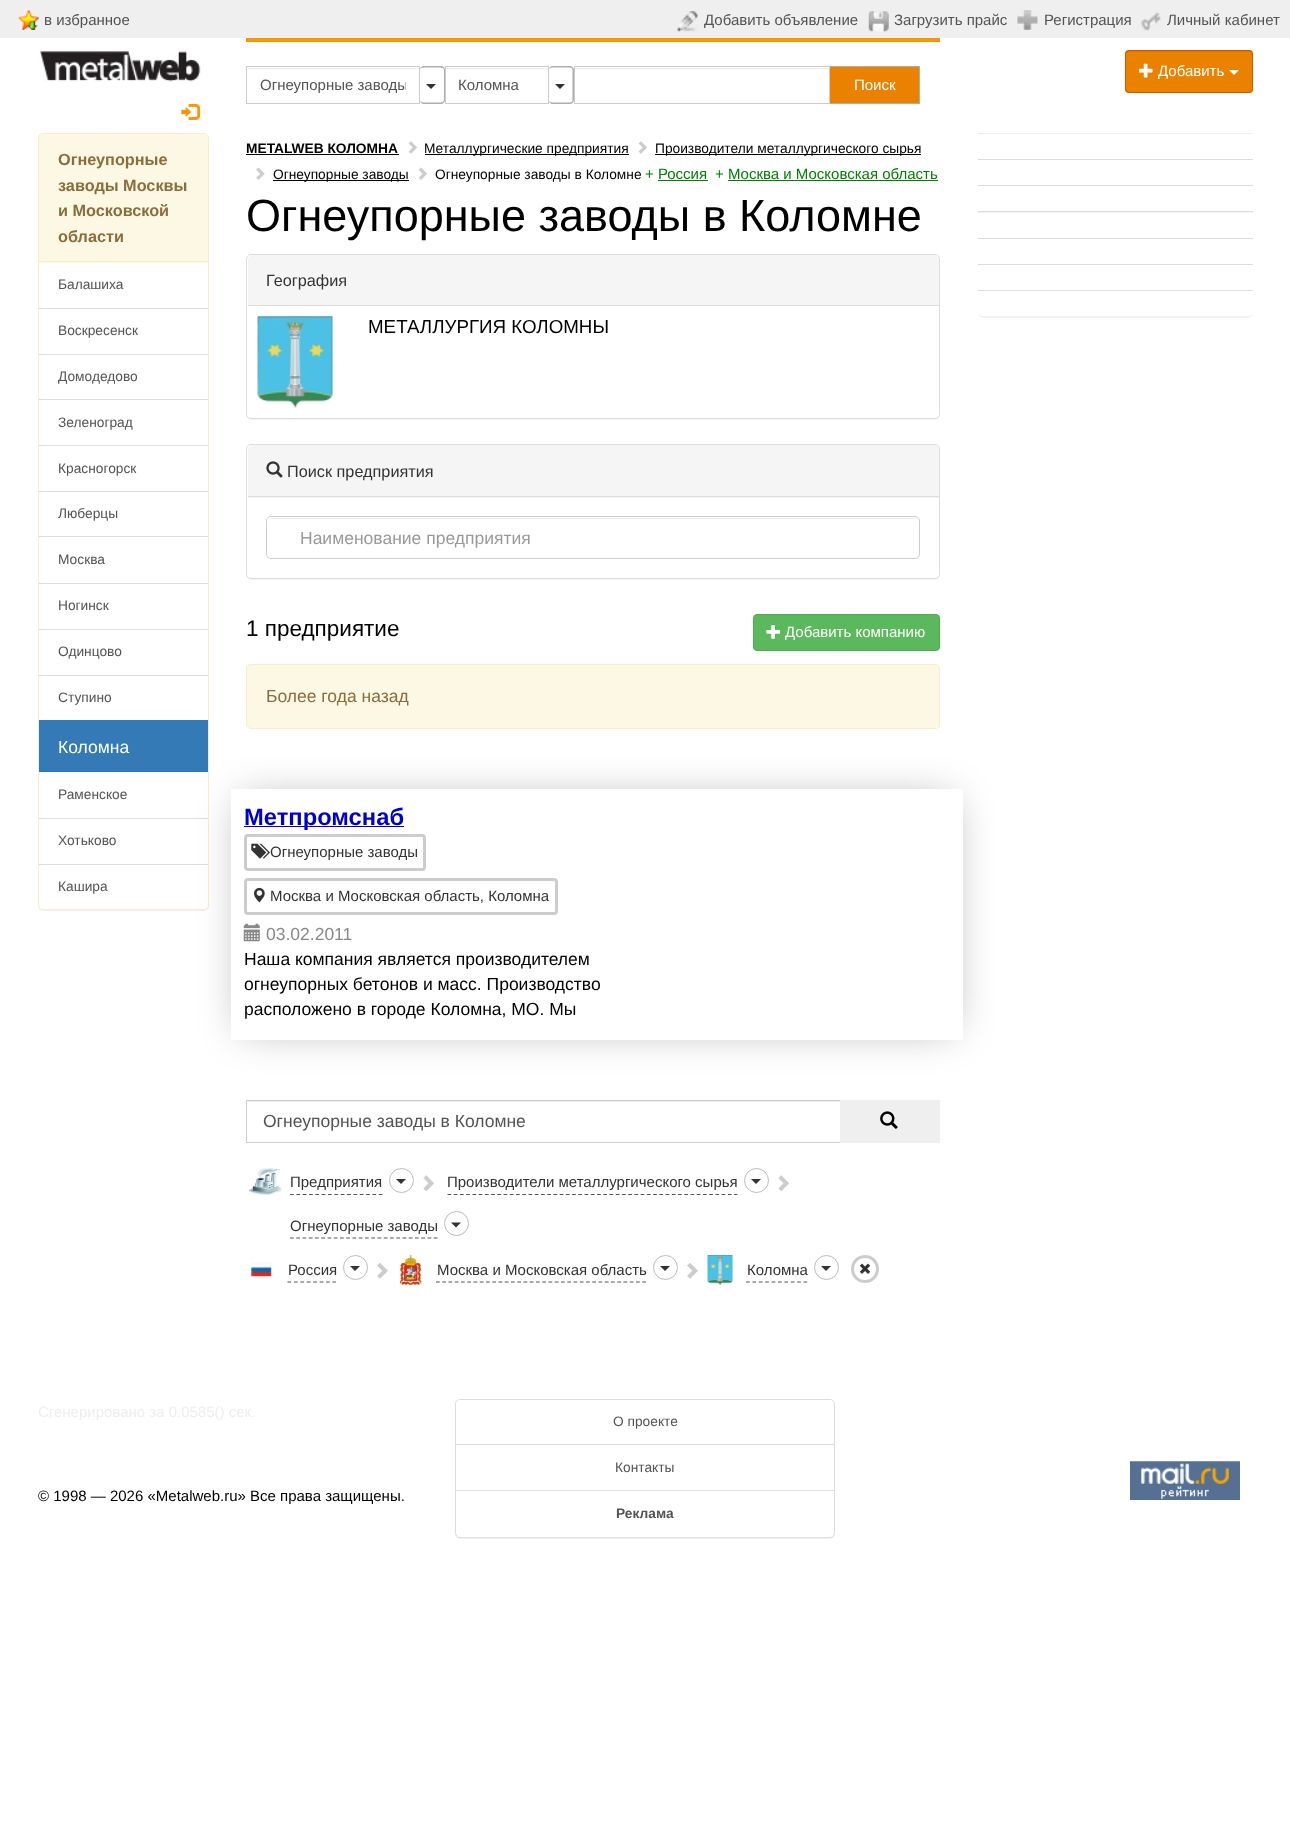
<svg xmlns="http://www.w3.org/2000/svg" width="1290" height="1839">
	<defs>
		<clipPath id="clip1"><rect x="260" y="76" width="146" height="18" /></clipPath>
		<clipPath id="clip2"><path d="M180 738H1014V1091H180ZM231 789H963V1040H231Z" clip-rule="evenodd" /></clipPath>
	</defs>
	<rect width="100%" height="100%" fill="#FFFFFF" />
	<rect x="0" y="0" width="1290" height="38" fill="#EFEFEF" />
	<image x="18" y="10" width="21" height="20" href="assets/img1.png" />
	<text x="44" y="25" font-family="Liberation Sans" font-size="15" fill="#545454">в избранное</text>
	<image x="677" y="11" width="21" height="21" href="assets/img2.png" />
	<text x="704" y="25" font-family="Liberation Sans" font-size="15" fill="#545454">Добавить объявление</text>
	<image x="868" y="11" width="21" height="21" href="assets/img3.png" />
	<text x="894" y="25" font-family="Liberation Sans" font-size="15" fill="#545454">Загрузить прайс</text>
	<image x="1017" y="10" width="21" height="20" href="assets/img4.png" />
	<text x="1044" y="25" font-family="Liberation Sans" font-size="15" fill="#545454">Регистрация</text>
	<image x="1141" y="12" width="20" height="19" href="assets/img5.png" />
	<text x="1167" y="25" font-family="Liberation Sans" font-size="15" fill="#545454">Личный кабинет</text>
	<image x="39" y="51" width="162" height="31" href="assets/img6.png" />
	<image x="181" y="103" width="20" height="17" href="assets/img7.png" />
	<rect x="1125" y="50" width="128" height="43" rx="4" fill="#EA8200" />
	<path d="M1129 52H1250L1251 55V54C1251 52 1250 51 1248 51H1128C1127 51 1126 52 1126 54V55C1126 54 1127 52 1129 52Z" fill="#D87800" />
	<rect x="1125.5" y="50.5" width="127" height="42" rx="3.5" fill="none" stroke="#D35501" />
	<image x="1139" y="63" width="14" height="15" href="assets/img8.png" />
	<text x="1158" y="76" font-family="Liberation Sans" font-size="15" fill="#FFFFFF">Добавить</text>
	<path d="M1229 70H1239L1234 75Z" fill="#FFFFFF" />
	<rect x="246" y="38" width="694" height="4" fill="#FC9503" />
	<rect x="248" y="68" width="171" height="1" fill="#ECECEC" />
	<rect x="246.5" y="66.5" width="173" height="37" fill="none" stroke="#CCCCCC" />
	<g clip-path="url(#clip1)">
		<text x="260" y="90" font-family="Liberation Sans" font-size="15" fill="#545454">Огнеупорные заводы</text>
	</g>
	<path d="M424 66H441C443.5 66 445 68 445 70V100C445 102 443.5 104 441 104H424C421.5 104 420 102 420 100V70C420 68 421.5 66 424 66ZM424 67.5H441C442.5 67.5 444 68.5 444 70V100C444 101.5 442.5 102.5 441 102.5H424C421.5 102.5 420 101.5 420 100V70C420 68.5 421.5 67.5 424 67.5Z" fill="#ADADAD" fill-rule="evenodd" />
	<path d="M426 84H436L431 89Z" fill="#333333" />
	<rect x="446" y="68" width="102" height="1" fill="#ECECEC" />
	<rect x="445.5" y="66.5" width="103" height="37" fill="none" stroke="#CCCCCC" />
	<text x="458" y="90" font-family="Liberation Sans" font-size="15" fill="#545454">Коломна</text>
	<path d="M552.5 66H570C572 66 574 68 574 70V100C574 102 572 104 570 104H552.5C550.5 104 549 102 549 100V70C549 68 550.5 66 552.5 66ZM552.5 67.5H570C571.5 67.5 572.5 68.5 572.5 70V100C572.5 101.5 571.5 102.5 570 102.5H552.5C550.5 102.5 549 101.5 549 100V70C549 68.5 550.5 67.5 552.5 67.5Z" fill="#ADADAD" fill-rule="evenodd" />
	<path d="M555 84H565L560 89Z" fill="#333333" />
	<rect x="575" y="68" width="254" height="1" fill="#ECECEC" />
	<rect x="574.5" y="66.5" width="255" height="37" fill="none" stroke="#CCCCCC" />
	<rect x="830" y="67" width="89" height="36" fill="#EA8200" />
	<rect x="830" y="66" width="90" height="1" fill="#ADADAD" />
	<rect x="919" y="66" width="1" height="38" fill="#ADADAD" />
	<rect x="830" y="103" width="90" height="1" fill="#ADADAD" />
	<text x="854" y="90" font-family="Liberation Sans" font-size="15" fill="#FFFFFF">Поиск</text>
	<rect x="38" y="134" width="171" height="777" rx="5" fill="#000000" fill-opacity="0.05" filter="blur(0.5px)" />
	<rect x="38.5" y="133.5" width="170" height="776" rx="4.5" fill="#FFFFFF" stroke="#FAEBCC" />
	<path d="M43 134H204C206 134 208 136 208 138V263H39V138C39 136 41 134 43 134Z" fill="#FCF8E3" />
	<rect x="39" y="261" width="169" height="1" fill="#FAEBCC" />
	<g font-family="Liberation Sans" font-size="16.25" font-weight="700" fill="#8A6D3B">
		<text x="58" y="165">Огнеупорные</text>
		<text x="58" y="191">заводы Москвы</text>
		<text x="58" y="216">и Московской</text>
		<text x="58" y="242">области</text>
	</g>
	<rect x="39" y="308" width="169" height="1" fill="#DDDDDD" />
	<text x="58" y="289" font-family="Liberation Sans" font-size="13.75" fill="#545454">Балашиха</text>
	<rect x="39" y="354" width="169" height="1" fill="#DDDDDD" />
	<text x="58" y="335" font-family="Liberation Sans" font-size="13.75" fill="#545454">Воскресенск</text>
	<rect x="39" y="399" width="169" height="1" fill="#DDDDDD" />
	<text x="58" y="381" font-family="Liberation Sans" font-size="13.75" fill="#545454">Домодедово</text>
	<rect x="39" y="445" width="169" height="1" fill="#DDDDDD" />
	<text x="58" y="427" font-family="Liberation Sans" font-size="13.75" fill="#545454">Зеленоград</text>
	<rect x="39" y="491" width="169" height="1" fill="#DDDDDD" />
	<text x="58" y="473" font-family="Liberation Sans" font-size="13.75" fill="#545454">Красногорск</text>
	<rect x="39" y="536" width="169" height="1" fill="#DDDDDD" />
	<text x="58" y="518" font-family="Liberation Sans" font-size="13.75" fill="#545454">Люберцы</text>
	<rect x="39" y="583" width="169" height="1" fill="#DDDDDD" />
	<text x="58" y="564" font-family="Liberation Sans" font-size="13.75" fill="#545454">Москва</text>
	<rect x="39" y="629" width="169" height="1" fill="#DDDDDD" />
	<text x="58" y="610" font-family="Liberation Sans" font-size="13.75" fill="#545454">Ногинск</text>
	<rect x="39" y="675" width="169" height="1" fill="#DDDDDD" />
	<g font-family="Liberation Sans" font-size="13.75" fill="#545454">
		<text x="58" y="656">Одинцово</text>
		<text x="58" y="702">Ступино</text>
	</g>
	<rect x="39" y="818" width="169" height="1" fill="#DDDDDD" />
	<path d="M39 864H208V905C208 907 206 909 204 909H43C41 909 39 907 39 905Z" fill="#FFFFFF" />
	<rect x="39" y="864" width="169" height="1" fill="#DDDDDD" />
	<g clip-path="url(#clip2)">
		<rect x="241" y="799" width="712" height="231" fill="#000000" fill-opacity="0.3" filter="blur(20px)" />
	</g>
	<rect x="39" y="720" width="169" height="52" fill="#337AB7" />
	<text x="58" y="753" font-family="Liberation Sans" font-size="17.5" fill="#FFFFFF">Коломна</text>
	<g font-family="Liberation Sans" font-size="13.75" fill="#545454">
		<text x="58" y="799">Раменское</text>
		<text x="58" y="845">Хотьково</text>
		<text x="58" y="891">Кашира</text>
	</g>
	<text x="246" y="153" font-family="Liberation Sans" font-size="13.75" font-weight="700" fill="#000000">METALWEB КОЛОМНА</text>
	<rect x="246" y="154" width="153" height="1" fill="#000000" />
	<image x="408" y="141" width="9" height="13" href="assets/img9.png" />
	<rect x="425" y="154" width="204" height="1" fill="#000000" />
	<text x="424" y="153" font-family="Liberation Sans" font-size="13.75" fill="#000000">Металлургические предприятия</text>
	<image x="638" y="141" width="9" height="13" href="assets/img9.png" />
	<rect x="655" y="154" width="266" height="1" fill="#000000" />
	<text x="655" y="153" font-family="Liberation Sans" font-size="13.75" fill="#000000">Производители металлургического сырья</text>
	<image x="256" y="167" width="9" height="13" href="assets/img10.png" />
	<rect x="273" y="180" width="136" height="1" fill="#000000" />
	<text x="273" y="179" font-family="Liberation Sans" font-size="13.75" fill="#000000">Огнеупорные заводы</text>
	<image x="418" y="167" width="9" height="13" href="assets/img11.png" />
	<text x="435" y="179" font-family="Liberation Sans" font-size="13.75" fill="#000000">Огнеупорные заводы в Коломне</text>
	<g font-family="Liberation Sans" font-size="15" fill="#008000">
		<text x="645" y="179">+ Россия</text>
		<text x="715" y="179">+ Москва и Московская область</text>
	</g>
	<rect x="658" y="180" width="50" height="1" fill="#008000" />
	<rect x="728" y="180" width="210" height="1" fill="#008000" />
	<text x="246" y="231" font-family="Liberation Sans" font-size="45" fill="#000000">Огнеупорные заводы в Коломне</text>
	<rect x="246" y="255" width="694" height="165" rx="5" fill="#000000" fill-opacity="0.05" filter="blur(0.5px)" />
	<rect x="246.5" y="254.5" width="693" height="164" rx="4.5" fill="#FFFFFF" stroke="#DDDDDD" />
	<path d="M252 255H935C937 255 939 257 939 259V306H248V259C248 257 250 255 252 255Z" fill="#F5F5F5" />
	<rect x="248" y="305" width="691" height="1" fill="#DDDDDD" />
	<text x="266" y="286" font-family="Liberation Sans" font-size="16.25" fill="#333333">География</text>
	<image x="257" y="316" width="76" height="92" href="assets/img12.png" />
	<text x="368" y="333" font-family="Liberation Sans" font-size="18.75" fill="#000000">МЕТАЛЛУРГИЯ КОЛОМНЫ</text>
	<rect x="246" y="445" width="694" height="135" rx="5" fill="#000000" fill-opacity="0.05" filter="blur(0.5px)" />
	<rect x="246.5" y="444.5" width="693" height="134" rx="4.5" fill="#FFFFFF" stroke="#DDDDDD" />
	<path d="M252 445H935C937 445 939 447 939 449V498H248V449C248 447 250 445 252 445Z" fill="#F5F5F5" />
	<rect x="248" y="496" width="691" height="1" fill="#DDDDDD" />
	<image x="266" y="461" width="17" height="17" href="assets/img13.png" />
	<text x="287" y="477" font-family="Liberation Sans" font-size="16.25" fill="#333333">Поиск предприятия</text>
	<path d="M271 519H915C917 519 919 520 919 522C919 520 917 518 915 518H272C271 518 269 519 269 520Z" fill="#ECECEC" />
	<rect x="266.5" y="516.5" width="653" height="42" rx="4.5" fill="none" stroke="#CCCCCC" />
	<text x="300" y="544" font-family="Liberation Sans" font-size="17.5" fill="#999999">Наименование предприятия</text>
	<text x="246" y="636" font-family="Liberation Sans" font-size="22.5" fill="#000000">1 предприятие</text>
	<rect x="753.5" y="614.5" width="186" height="36" rx="3.5" fill="#5CB85C" stroke="#4CAE4C" />
	<image x="766" y="625" width="14" height="14" href="assets/img14.png" />
	<text x="785" y="637" font-family="Liberation Sans" font-size="15" fill="#FFFFFF">Добавить компанию</text>
	<rect x="246.5" y="664.5" width="693" height="64" rx="4.5" fill="#FCF8E3" stroke="#FAEBCC" />
	<text x="266" y="702" font-family="Liberation Sans" font-size="17.5" fill="#8A6D3B">Более года назад</text>
	<rect x="244" y="826" width="160" height="1" fill="#0000CC" />
	<text x="244" y="825" font-family="Liberation Sans" font-size="23.75" font-weight="700" fill="#0000CC">Метпромснаб</text>
	<rect x="245.5" y="835.5" width="179" height="34" rx="2.5" fill="none" stroke="#CCCCCC" stroke-width="3" />
	<image x="251" y="843" width="19" height="16" href="assets/img15.png" />
	<text x="270" y="857" font-family="Liberation Sans" font-size="15" fill="#333333">Огнеупорные заводы</text>
	<rect x="245.5" y="879.5" width="311" height="34" rx="2.5" fill="none" stroke="#CCCCCC" stroke-width="3" />
	<image x="254" y="887" width="11" height="16" href="assets/img16.png" />
	<text x="270" y="901" font-family="Liberation Sans" font-size="15" fill="#333333">Москва и Московская область, Коломна</text>
	<image x="243" y="923" width="17" height="19" href="assets/img17.png" />
	<text x="266" y="940" font-family="Liberation Sans" font-size="17.5" fill="#888888">03.02.2011</text>
	<g font-family="Liberation Sans" font-size="17.5" fill="#000000">
		<text x="244" y="965">Наша компания является производителем</text>
		<text x="244" y="990">огнеупорных бетонов и масс. Производство</text>
		<text x="244" y="1015">расположено в городе Коломна, МО. Мы</text>
	</g>
	<rect x="248" y="1101" width="592" height="1" fill="#ECECEC" />
	<rect x="246.5" y="1100.5" width="594" height="42" fill="none" stroke="#CCCCCC" />
	<text x="263" y="1127" font-family="Liberation Sans" font-size="17.5" fill="#545454">Огнеупорные заводы в Коломне</text>
	<rect x="840" y="1100" width="100" height="43" fill="#EFEFEF" />
	<image x="880" y="1111" width="18" height="18" href="assets/img18.png" />
	<image x="248" y="1168" width="34" height="27" href="assets/img19.png" />
	<path d="M290 1194.5H382.5" fill="none" stroke="#555555" stroke-width="1.2" stroke-dasharray="3.75 2.59" />
	<text x="290" y="1187" font-family="Liberation Sans" font-size="15" fill="#333333">Предприятия</text>
	<circle cx="401.5" cy="1180.5" r="12" fill="none" stroke="#BBBBBB" />
	<path d="M396 1179H406L401 1184Z" fill="#333333" />
	<image x="423" y="1175" width="11" height="17" href="assets/img20.png" />
	<path d="M447.5 1194.5H737.5" fill="none" stroke="#555555" stroke-width="1.2" stroke-dasharray="3.75 2.48" />
	<text x="447" y="1187" font-family="Liberation Sans" font-size="15" fill="#333333">Производители металлургического сырья</text>
	<circle cx="756.5" cy="1180.5" r="12" fill="none" stroke="#BBBBBB" />
	<path d="M751 1179H761L756 1184Z" fill="#333333" />
	<image x="778" y="1175" width="11" height="17" href="assets/img20.png" />
	<path d="M290 1238H437.5" fill="none" stroke="#555555" stroke-width="1.2" stroke-dasharray="3.75 2.5" />
	<text x="290" y="1231" font-family="Liberation Sans" font-size="15" fill="#333333">Огнеупорные заводы</text>
	<circle cx="456.5" cy="1223.5" r="12" fill="none" stroke="#BBBBBB" />
	<path d="M451 1222.5H461L456 1227.5Z" fill="#333333" />
	<image x="251" y="1262" width="21" height="15" href="assets/img21.png" />
	<path d="M287.5 1282H336" fill="none" stroke="#555555" stroke-width="1.2" stroke-dasharray="3.75 2.68" />
	<text x="288" y="1275" font-family="Liberation Sans" font-size="15" fill="#333333">Россия</text>
	<circle cx="355.5" cy="1267.5" r="12" fill="none" stroke="#BBBBBB" />
	<path d="M350 1266H360L355 1271Z" fill="#333333" />
	<image x="377" y="1263" width="11" height="16" href="assets/img22.png" />
	<image x="400" y="1255" width="22" height="30" href="assets/img23.png" />
	<path d="M436 1282H646" fill="none" stroke="#555555" stroke-width="1.2" stroke-dasharray="3.75 2.5" />
	<text x="437" y="1275" font-family="Liberation Sans" font-size="15" fill="#333333">Москва и Московская область</text>
	<circle cx="665.5" cy="1267.5" r="12" fill="none" stroke="#BBBBBB" />
	<path d="M660 1266H670L665 1271Z" fill="#333333" />
	<image x="687" y="1263" width="11" height="16" href="assets/img22.png" />
	<image x="707" y="1255" width="26" height="30" href="assets/img24.png" />
	<path d="M746 1282H807.5" fill="none" stroke="#555555" stroke-width="1.2" stroke-dasharray="3.75 2.64" />
	<text x="747" y="1275" font-family="Liberation Sans" font-size="15" fill="#333333">Коломна</text>
	<circle cx="826.5" cy="1267.5" r="12" fill="none" stroke="#BBBBBB" />
	<path d="M821 1266H831L826 1271Z" fill="#333333" />
	<circle cx="865" cy="1269" r="12.5" fill="none" stroke="#CCCCCC" stroke-width="3" />
	<image x="859" y="1263" width="12" height="11" href="assets/img25.png" />
	<rect x="978" y="135" width="275" height="183" rx="5" fill="#000000" fill-opacity="0.05" filter="blur(0.5px)" />
	<path d="M982 134H1249C1251 134 1253 136 1253 138V160H978V138C978 136 980 134 982 134Z" fill="#FFFFFF" />
	<rect x="978" y="159" width="275" height="1" fill="#DDDDDD" />
	<rect x="978" y="160" width="275" height="25" fill="#FFFFFF" />
	<rect x="978" y="185" width="275" height="1" fill="#DDDDDD" />
	<rect x="978" y="186" width="275" height="25" fill="#FFFFFF" />
	<rect x="978" y="211" width="275" height="1" fill="#DDDDDD" />
	<rect x="978" y="213" width="275" height="25" fill="#FFFFFF" />
	<rect x="978" y="238" width="275" height="1" fill="#DDDDDD" />
	<rect x="978" y="239" width="275" height="25" fill="#FFFFFF" />
	<rect x="978" y="264" width="275" height="1" fill="#DDDDDD" />
	<rect x="978" y="265" width="275" height="25" fill="#FFFFFF" />
	<path d="M978 290H1253V312C1253 314 1251 316 1249 316H982C980 316 978 314 978 312Z" fill="#FFFFFF" />
	<rect x="978" y="290" width="275" height="1" fill="#DDDDDD" />
	<rect x="978" y="133" width="275" height="1" fill="#EEEEEE" />
	<text x="38" y="1417" font-family="Liberation Sans" font-size="15" fill="#EEEEEE">Сгенерировано за 0.0585() cек.</text>
	<text x="38" y="1501" font-family="Liberation Sans" font-size="15" fill="#000000">© 1998 — 2026 «Metalweb.ru» Все права защищены.</text>
	<rect x="455" y="1400" width="380" height="139" rx="5" fill="#000000" fill-opacity="0.05" filter="blur(0.5px)" />
	<rect x="455.5" y="1399.5" width="379" height="138" rx="4.5" fill="#FFFFFF" stroke="#DDDDDD" />
	<path d="M460 1400H830C832 1400 834 1402 834 1404V1445H456V1404C456 1402 458 1400 460 1400Z" fill="#FFFFFF" />
	<rect x="456" y="1444" width="378" height="1" fill="#DDDDDD" />
	<g font-family="Liberation Sans" font-size="13.75" fill="#545454">
		<text x="613" y="1426">О проекте</text>
		<text x="615" y="1472">Контакты</text>
	</g>
	<rect x="456" y="1490" width="378" height="1" fill="#DDDDDD" />
	<text x="616" y="1518" font-family="Liberation Sans" font-size="13.75" font-weight="700" fill="#545454">Реклама</text>
	<image x="1130" y="1461" width="110" height="39" href="assets/img26.png" />
</svg>
